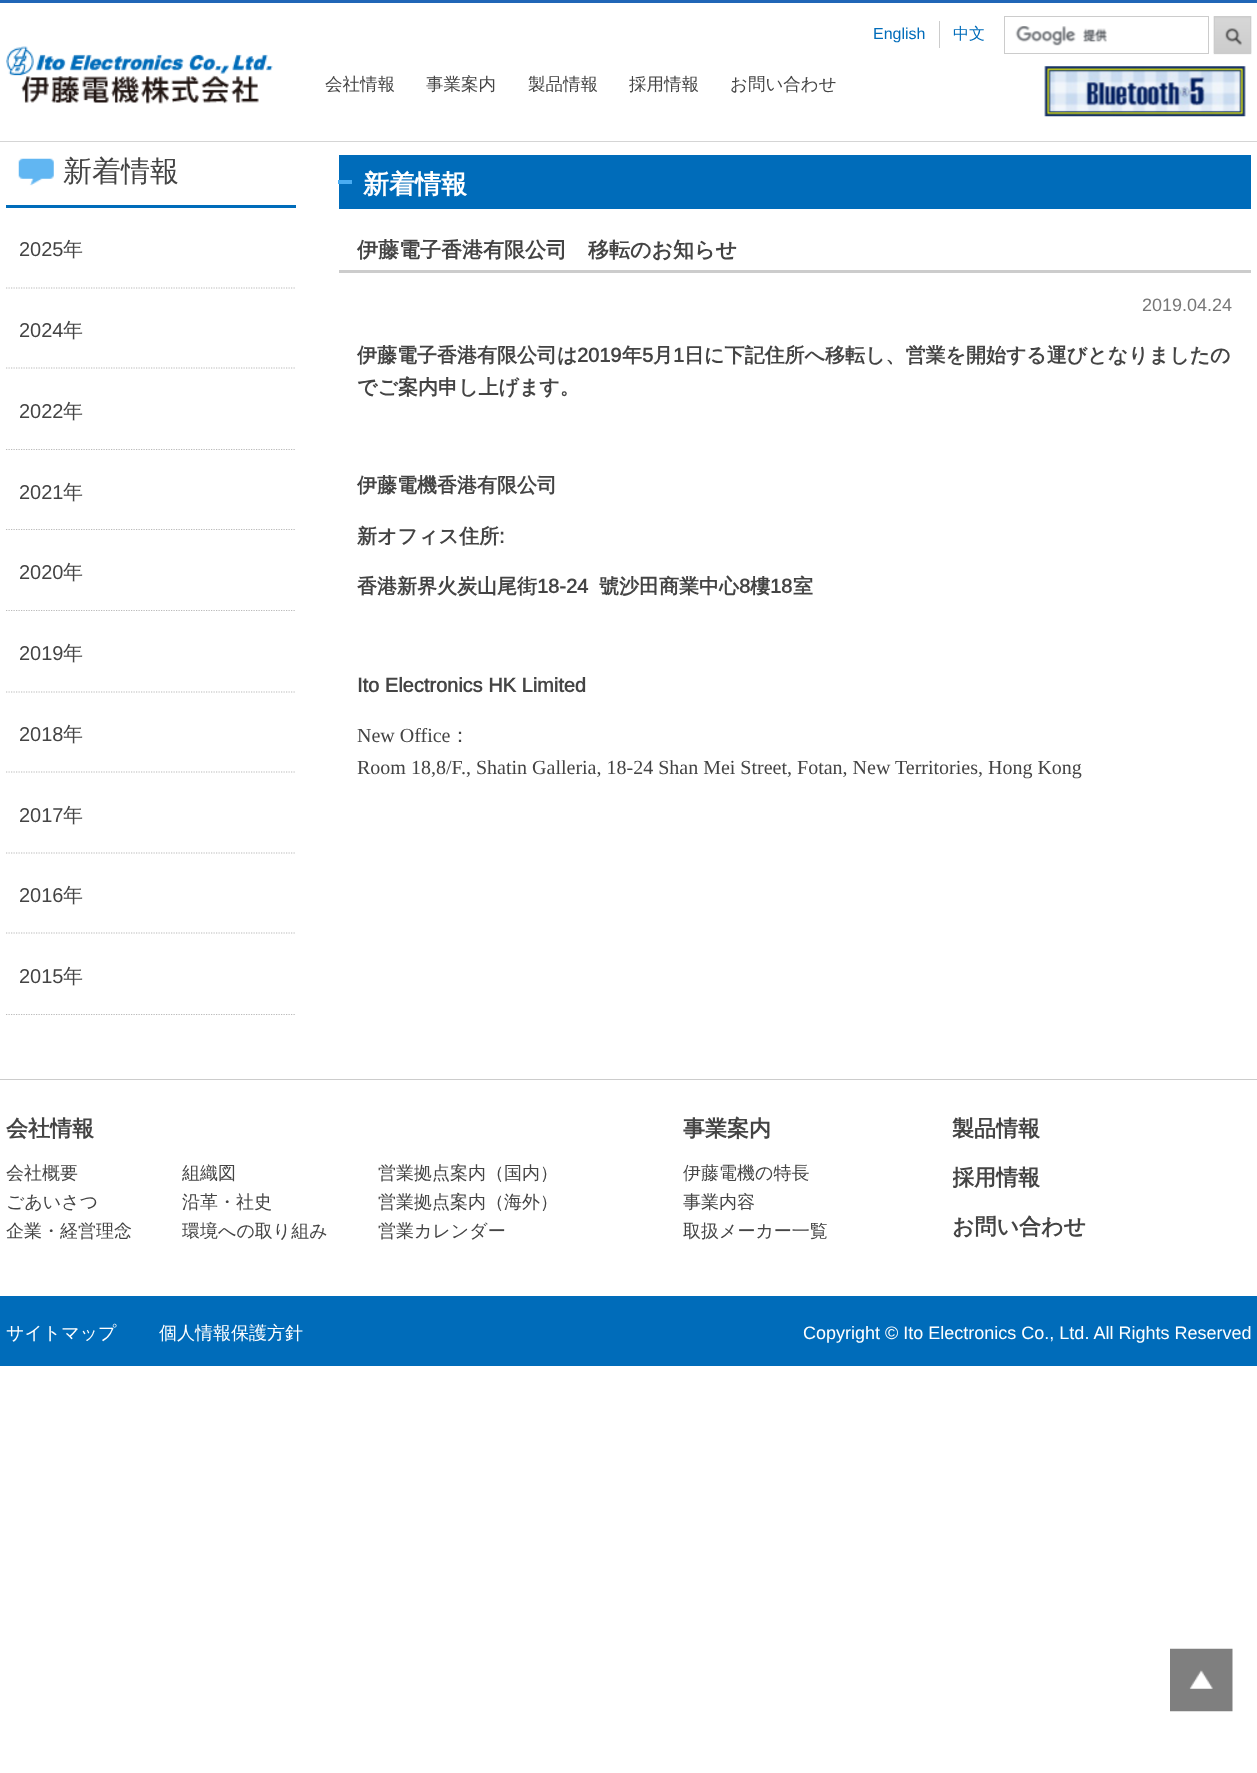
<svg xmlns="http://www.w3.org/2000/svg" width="1257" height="1773">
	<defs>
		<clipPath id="clip1"><rect x="6" y="155" width="1245" height="860" /></clipPath>
		<clipPath id="clip2"><rect x="953" y="1160" width="87" height="49" /></clipPath>
	</defs>
	<rect width="100%" height="100%" fill="#FFFFFF" />
	<rect x="0" y="0" width="1257" height="3" fill="#2066B7" />
	<rect x="0" y="141" width="1257" height="1" fill="#D5D5D5" />
	<rect x="939" y="21" width="1" height="27" fill="#CCCCCC" />
	<text x="873" y="39" font-family="Arimo" font-size="16" fill="#006CBA">English</text>
	<text x="953" y="39" font-family="WenQuanYi Zen Hei" font-size="16" font-weight="500" fill="#006CBA">中文</text>
	<image x="1015" y="26" width="92" height="20" href="assets/img1.png" />
	<rect x="1004.5" y="16.5" width="204" height="37" fill="none" stroke="#CCCCCC" />
	<image x="1213" y="16" width="39" height="39" href="assets/img2.png" />
	<rect x="1214.5" y="16.5" width="36" height="37" fill="none" stroke="#CCCCCC" />
	<image x="1044" y="66" width="202" height="51" href="assets/img3.png" />
	<image x="6" y="46" width="267" height="58" href="assets/img4.png" />
	<g font-family="WenQuanYi Zen Hei" font-size="17.5" font-weight="500" fill="#444444">
		<text x="325" y="90">会社情報</text>
		<text x="426" y="90">事業案内</text>
		<text x="528" y="90">製品情報</text>
		<text x="629" y="90">採用情報</text>
		<text x="730" y="90">お問い合わせ</text>
	</g>
	<rect x="6" y="205" width="290" height="3" fill="#006CBA" />
	<image x="18" y="158" width="36" height="28" href="assets/img5.png" />
	<text x="63" y="181" font-family="WenQuanYi Zen Hei" font-size="29" font-weight="500" fill="#444444">新着情報</text>
	<path d="M6 288H296" fill="none" stroke="#BABABA" stroke-width="1.2" stroke-dasharray="1.25 1.25" />
	<text x="19" y="256" font-family="Arimo" font-size="20" fill="#444444">2025</text>
	<text x="63" y="256" font-family="WenQuanYi Zen Hei" font-size="20" font-weight="500" fill="#444444">年</text>
	<path d="M6 368H296" fill="none" stroke="#BABABA" stroke-width="1.2" stroke-dasharray="1.25 1.25" />
	<text x="19" y="337" font-family="Arimo" font-size="20" fill="#444444">2024</text>
	<text x="63" y="337" font-family="WenQuanYi Zen Hei" font-size="20" font-weight="500" fill="#444444">年</text>
	<path d="M6 449.5H296" fill="none" stroke="#BABABA" stroke-width="1.2" stroke-dasharray="1.25 1.25" />
	<text x="19" y="418" font-family="Arimo" font-size="20" fill="#444444">2022</text>
	<text x="63" y="418" font-family="WenQuanYi Zen Hei" font-size="20" font-weight="500" fill="#444444">年</text>
	<path d="M6 529.5H296" fill="none" stroke="#BABABA" stroke-width="1.2" stroke-dasharray="1.25 1.25" />
	<text x="19" y="499" font-family="Arimo" font-size="20" fill="#444444">2021</text>
	<text x="63" y="499" font-family="WenQuanYi Zen Hei" font-size="20" font-weight="500" fill="#444444">年</text>
	<path d="M6 610.5H296" fill="none" stroke="#BABABA" stroke-width="1.2" stroke-dasharray="1.25 1.25" />
	<text x="19" y="579" font-family="Arimo" font-size="20" fill="#444444">2020</text>
	<text x="63" y="579" font-family="WenQuanYi Zen Hei" font-size="20" font-weight="500" fill="#444444">年</text>
	<path d="M6 692H296" fill="none" stroke="#BABABA" stroke-width="1.2" stroke-dasharray="1.25 1.25" />
	<text x="19" y="660" font-family="Arimo" font-size="20" fill="#444444">2019</text>
	<text x="63" y="660" font-family="WenQuanYi Zen Hei" font-size="20" font-weight="500" fill="#444444">年</text>
	<path d="M6 772H296" fill="none" stroke="#BABABA" stroke-width="1.2" stroke-dasharray="1.25 1.25" />
	<text x="19" y="741" font-family="Arimo" font-size="20" fill="#444444">2018</text>
	<text x="63" y="741" font-family="WenQuanYi Zen Hei" font-size="20" font-weight="500" fill="#444444">年</text>
	<path d="M6 853H296" fill="none" stroke="#BABABA" stroke-width="1.2" stroke-dasharray="1.25 1.25" />
	<text x="19" y="822" font-family="Arimo" font-size="20" fill="#444444">2017</text>
	<text x="63" y="822" font-family="WenQuanYi Zen Hei" font-size="20" font-weight="500" fill="#444444">年</text>
	<path d="M6 933H296" fill="none" stroke="#BABABA" stroke-width="1.2" stroke-dasharray="1.25 1.25" />
	<text x="19" y="902" font-family="Arimo" font-size="20" fill="#444444">2016</text>
	<text x="63" y="902" font-family="WenQuanYi Zen Hei" font-size="20" font-weight="500" fill="#444444">年</text>
	<g clip-path="url(#clip1)">
		<path d="M6 1014.5H296" fill="none" stroke="#BABABA" stroke-width="1.2" stroke-dasharray="1.25 1.25" />
	</g>
	<text x="19" y="983" font-family="Arimo" font-size="20" fill="#444444">2015</text>
	<text x="63" y="983" font-family="WenQuanYi Zen Hei" font-size="20" font-weight="500" fill="#444444">年</text>
	<rect x="339" y="155" width="912" height="54" fill="#006CBA" />
	<rect x="338" y="180" width="14" height="4" fill="#49ACF2" />
	<text x="363" y="193" font-family="WenQuanYi Zen Hei" font-size="26" font-weight="700" fill="#FFFFFF">新着情報</text>
	<rect x="339" y="270" width="912" height="3" fill="#CCCCCC" />
	<text x="357" y="257" font-family="WenQuanYi Zen Hei" font-size="21" font-weight="700" fill="#444444">伊藤電子香港有限公司　移転のお知らせ</text>
	<text x="1142" y="311" font-family="Arimo" font-size="18" fill="#777777">2019.04.24</text>
	<text x="357" y="362" font-family="WenQuanYi Zen Hei" font-size="20" font-weight="700" fill="#444444">伊藤電子香港有限公司は</text>
	<text x="577" y="362" font-family="Arimo" font-size="20" font-weight="700" fill="#444444">2019</text>
	<text x="622" y="362" font-family="WenQuanYi Zen Hei" font-size="20" font-weight="700" fill="#444444">年</text>
	<text x="642" y="362" font-family="Arimo" font-size="20" font-weight="700" fill="#444444">5</text>
	<text x="653" y="362" font-family="WenQuanYi Zen Hei" font-size="20" font-weight="700" fill="#444444">月</text>
	<text x="673" y="362" font-family="Arimo" font-size="20" font-weight="700" fill="#444444">1</text>
	<g font-family="WenQuanYi Zen Hei" font-size="20" font-weight="700" fill="#444444">
		<text x="684" y="362">日に下記住所へ移転し、営業を開始する運びとなりましたの</text>
		<text x="357" y="394">でご案内申し上げます。</text>
		<text x="357" y="492">伊藤電機香港有限公司</text>
		<text x="357" y="543">新オフィス住所</text>
	</g>
	<text x="499" y="543" font-family="Arimo" font-size="20" font-weight="700" fill="#444444">:</text>
	<text x="357" y="593" font-family="WenQuanYi Zen Hei" font-size="20" font-weight="700" fill="#444444">香港新界火炭山尾街</text>
	<text x="537" y="593" font-family="Arimo" font-size="20" font-weight="700" fill="#444444">18-24</text>
	<text x="599" y="593" font-family="WenQuanYi Zen Hei" font-size="20" font-weight="700" fill="#444444">號沙田商業中心</text>
	<text x="739" y="593" font-family="Arimo" font-size="20" font-weight="700" fill="#444444">8</text>
	<text x="750" y="593" font-family="WenQuanYi Zen Hei" font-size="20" font-weight="700" fill="#444444">樓</text>
	<text x="770" y="593" font-family="Arimo" font-size="20" font-weight="700" fill="#444444">18</text>
	<text x="793" y="593" font-family="WenQuanYi Zen Hei" font-size="20" font-weight="700" fill="#444444">室</text>
	<text x="357" y="692" font-family="Arimo" font-size="20" font-weight="700" fill="#444444">Ito Electronics HK Limited</text>
	<text x="357" y="742" font-family="Liberation Serif" font-size="20" fill="#444444">New Office</text>
	<text x="450" y="742" font-family="WenQuanYi Zen Hei" font-size="20" font-weight="500" fill="#444444">：</text>
	<text x="357" y="774" font-family="Liberation Serif" font-size="20" fill="#444444">Room 18,8/F., Shatin Galleria, 18-24 Shan Mei Street, Fotan, New Territories, Hong Kong</text>
	<rect x="0" y="1079" width="1257" height="1" fill="#CCCCCC" />
	<text x="6" y="1136" font-family="WenQuanYi Zen Hei" font-size="22" font-weight="700" fill="#444444">会社情報</text>
	<g font-family="WenQuanYi Zen Hei" font-size="18" font-weight="500" fill="#444444">
		<text x="6" y="1179">会社概要</text>
		<text x="6" y="1208">ごあいさつ</text>
		<text x="6" y="1237">企業・経営理念</text>
		<text x="182" y="1179">組織図</text>
		<text x="182" y="1208">沿革・社史</text>
		<text x="182" y="1237">環境への取り組み</text>
		<text x="378" y="1179">営業拠点案内（国内）</text>
		<text x="378" y="1208">営業拠点案内（海外）</text>
		<text x="378" y="1237">営業カレンダー</text>
	</g>
	<text x="683" y="1136" font-family="WenQuanYi Zen Hei" font-size="22" font-weight="700" fill="#444444">事業案内</text>
	<g font-family="WenQuanYi Zen Hei" font-size="18" font-weight="500" fill="#444444">
		<text x="683" y="1179">伊藤電機の特長</text>
		<text x="683" y="1208">事業内容</text>
		<text x="683" y="1237">取扱メーカー一覧</text>
	</g>
	<text x="952" y="1136" font-family="WenQuanYi Zen Hei" font-size="22" font-weight="700" fill="#444444">製品情報</text>
	<g clip-path="url(#clip2)">
		<text x="952" y="1185" font-family="WenQuanYi Zen Hei" font-size="22" font-weight="700" fill="#444444">採用情報</text>
	</g>
	<text x="952" y="1234" font-family="WenQuanYi Zen Hei" font-size="22" font-weight="700" fill="#444444">お問い合わせ</text>
	<rect x="0" y="1296" width="1257" height="70" fill="#006CBA" />
	<g font-family="WenQuanYi Zen Hei" font-size="18" font-weight="500" fill="#FFFFFF">
		<text x="6" y="1339">サイトマップ</text>
		<text x="159" y="1339">個人情報保護方針</text>
	</g>
	<text x="803" y="1339" font-family="Arimo" font-size="18" fill="#FFFFFF">Copyright © Ito Electronics Co., Ltd. All Rights Reserved</text>
	<image x="1170" y="1648" width="63" height="64" href="assets/img6.png" />
</svg>
